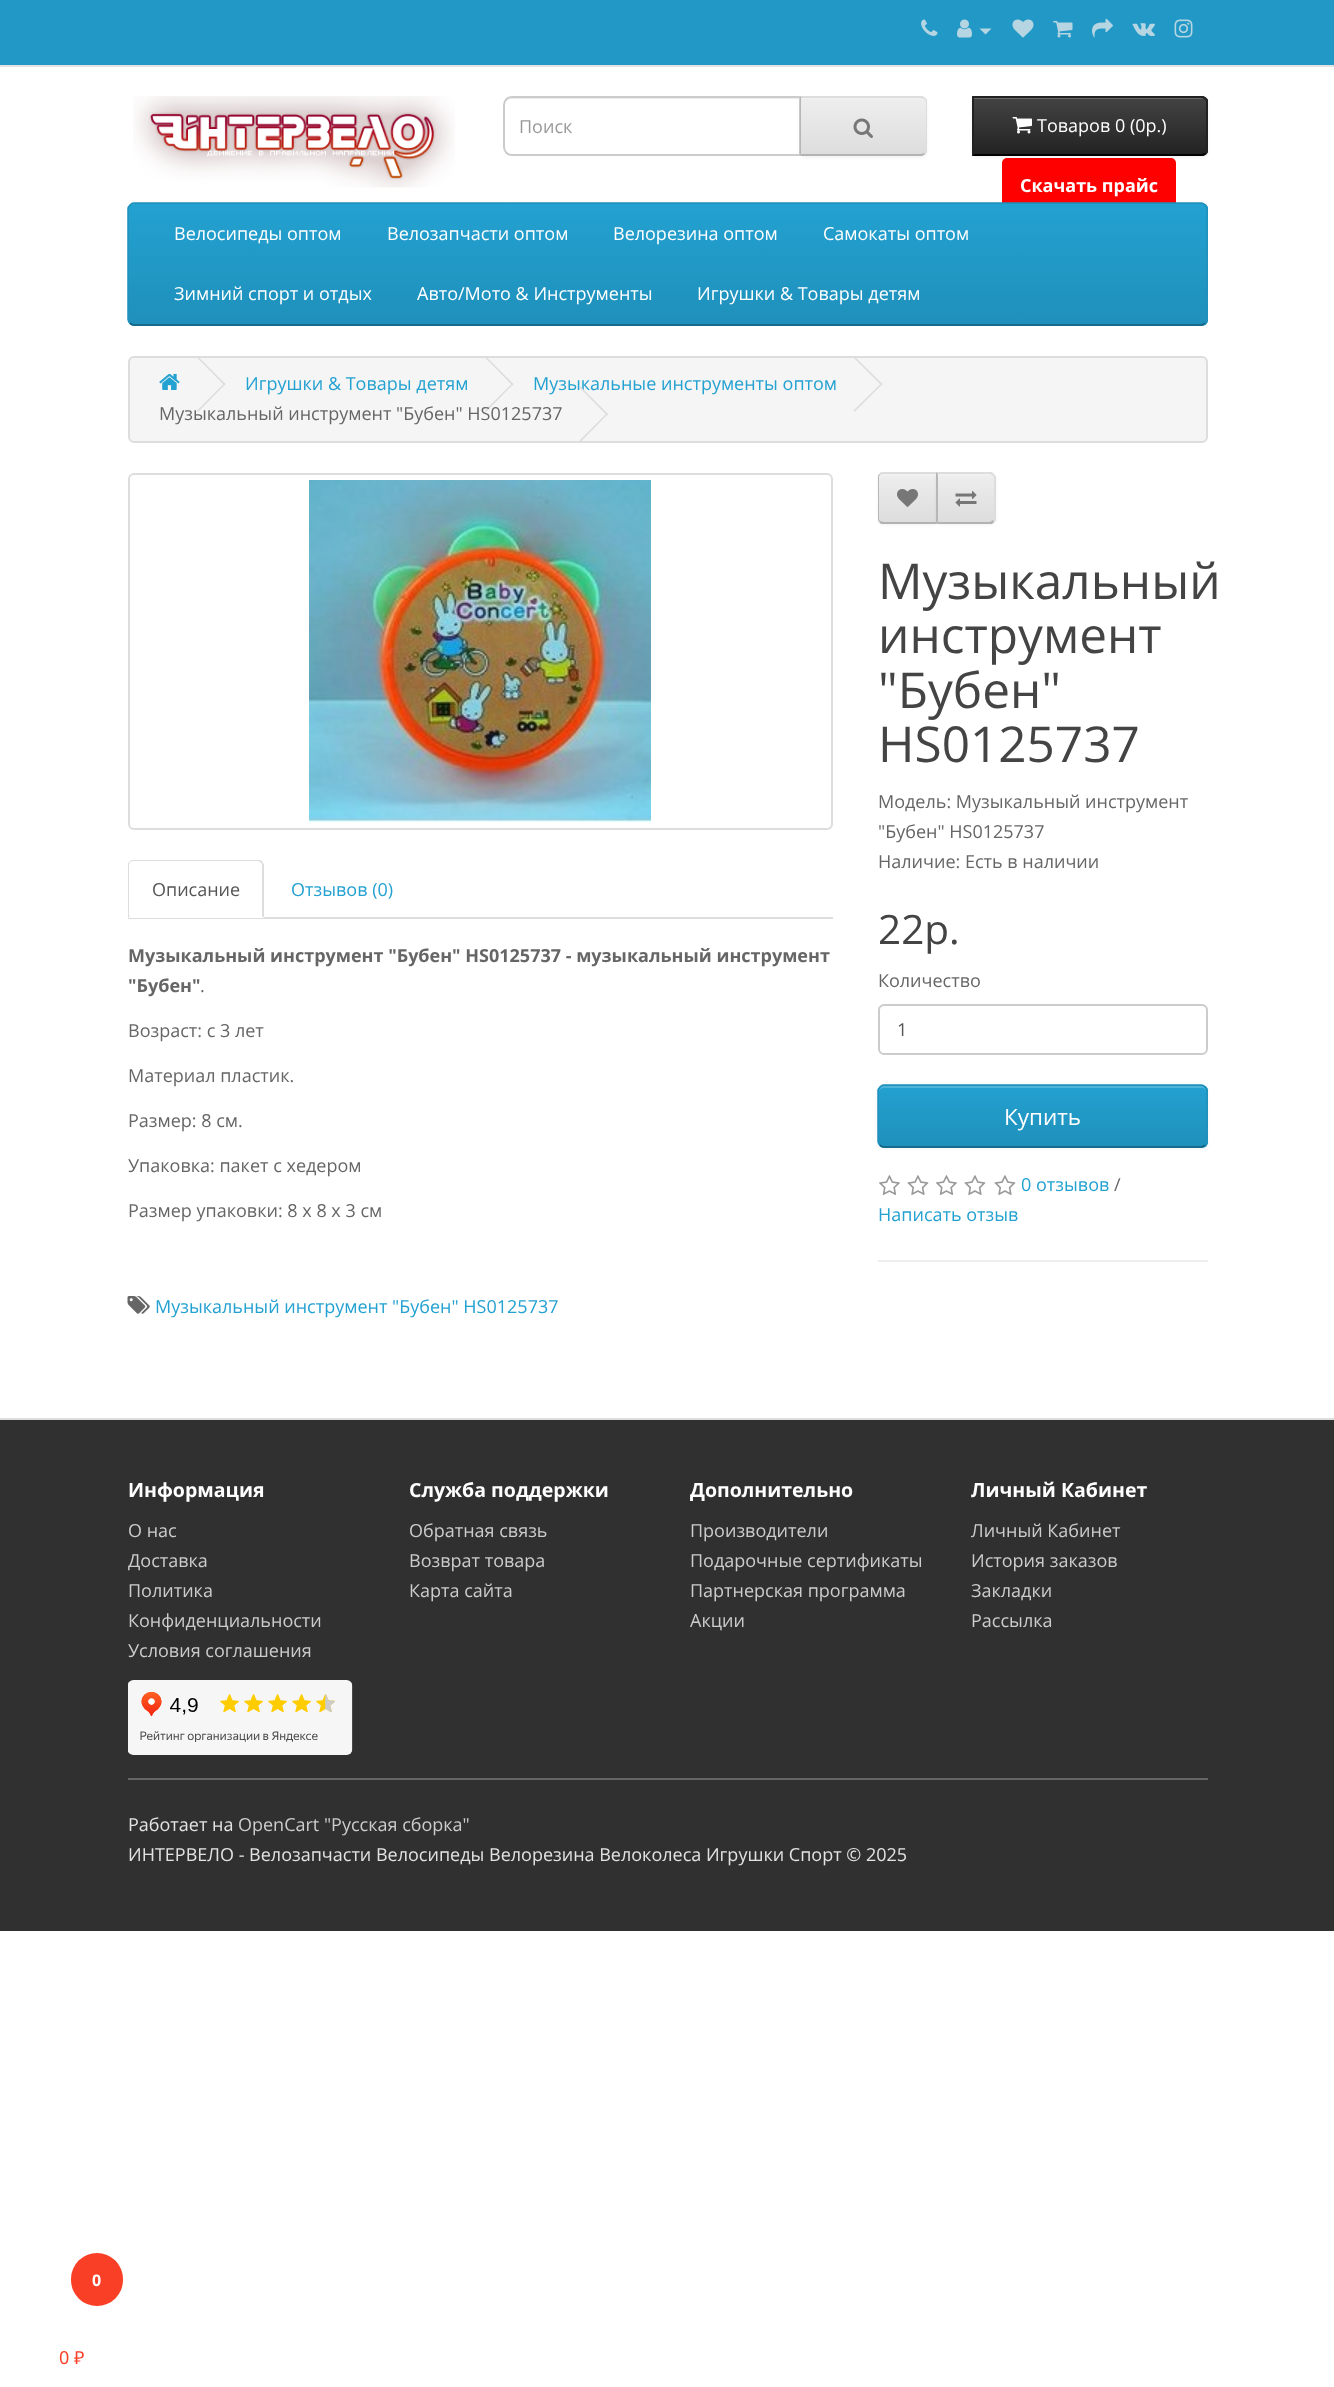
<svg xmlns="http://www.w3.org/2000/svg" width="1334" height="2387">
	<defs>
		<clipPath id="clip1"><path d="M972 96H1202C1205.5 96 1208 98.5 1208 102V150C1208 153.5 1205.5 156 1202 156H972Z" /></clipPath>
		<linearGradient id="g1" gradientUnits="userSpaceOnUse" x1="1090" y1="97" x2="1090" y2="155"><stop offset="0" stop-color="#444444" /><stop offset="1" stop-color="#222222" /></linearGradient>
		<clipPath id="clip2"><path d="M800 96H921C924.5 96 927 98.5 927 102V150C927 153.5 924.5 156 921 156H800Z" /></clipPath>
		<linearGradient id="g2" gradientUnits="userSpaceOnUse" x1="863" y1="98" x2="863" y2="155"><stop offset="0" stop-color="#EEEEEE" /><stop offset="1" stop-color="#DDDDDD" /></linearGradient>
		<clipPath id="clip3"><rect x="128" y="203" width="1080" height="123" rx="6" /></clipPath>
		<linearGradient id="g3" gradientUnits="userSpaceOnUse" x1="668" y1="204" x2="668" y2="324"><stop offset="0" stop-color="#23A1D1" /><stop offset="1" stop-color="#1F90BB" /></linearGradient>
		<clipPath id="clip4"><path d="M884 473H938V524H884C880.5 524 878 521.5 878 518V479C878 475.5 880.5 473 884 473Z" /></clipPath>
		<linearGradient id="g4" gradientUnits="userSpaceOnUse" x1="908" y1="474" x2="908" y2="522"><stop offset="0" stop-color="#EEEEEE" /><stop offset="1" stop-color="#DDDDDD" /></linearGradient>
		<clipPath id="clip5"><path d="M936 473H990C993.5 473 996 475.5 996 479V518C996 521.5 993.5 524 990 524H936Z" /></clipPath>
		<linearGradient id="g5" gradientUnits="userSpaceOnUse" x1="966" y1="474" x2="966" y2="522"><stop offset="0" stop-color="#EEEEEE" /><stop offset="1" stop-color="#DDDDDD" /></linearGradient>
		<clipPath id="clip6"><rect x="878" y="1085" width="330" height="63" rx="6" /></clipPath>
		<linearGradient id="g6" gradientUnits="userSpaceOnUse" x1="1043" y1="1086" x2="1043" y2="1146"><stop offset="0" stop-color="#23A1D1" /><stop offset="1" stop-color="#1F90BB" /></linearGradient>
	</defs>
	<rect width="100%" height="100%" fill="#FFFFFF" />
	<rect x="0" y="0" width="1334" height="65" fill="#2198C6" />
	<rect x="0" y="65" width="1334" height="2" fill="#E2E2E2" />
	<image x="921" y="19" width="17" height="17" href="assets/img1.png" />
	<image x="957" y="19" width="15" height="19" href="assets/img2.png" />
	<path d="M979.5 28.5H991.5L985.5 34.5Z" fill="#B4D5E1" />
	<image x="1012" y="19" width="22" height="19" href="assets/img3.png" />
	<image x="1053" y="21" width="20" height="17" href="assets/img4.png" />
	<image x="1092" y="18" width="21" height="20" href="assets/img5.png" />
	<image x="1132" y="23" width="23" height="13" href="assets/img6.png" />
	<image x="1174" y="19" width="19" height="19" href="assets/img7.png" />
	<image x="133" y="96" width="322" height="92" href="assets/img8.png" />
	<rect x="1002" y="158" width="174" height="60" rx="5" fill="#FF0000" />
	<rect x="972" y="98" width="236" height="60" rx="6" fill="#000000" fill-opacity="0.05" filter="blur(1.5px)" />
	<path d="M972 96H1202C1205.5 96 1208 98.5 1208 102V150C1208 153.5 1205.5 156 1202 156H972Z" fill="#363636" />
	<g clip-path="url(#clip1)">
		<rect x="973" y="98" width="235" height="57" fill="url(#g1)" />
	</g>
	<path d="M974 99H1202C1204 99 1206 101 1206 104C1206 101 1204 98 1201 98H974Z" fill="#696969" />
	<path d="M972 96L974 98H1202L1204 99L1206 98C1205 97 1203 96 1202 96Z" fill="#222222" />
	<path d="M1208 152L1206 154L1204 153C1205 152 1206 151 1206 150V102C1206 101 1205 100 1204 99L1206 98L1208 100Z" fill="#222222" />
	<path d="M1202 156C1203 156 1205 155 1206 154L1204 153L1202 154H974L972 156Z" fill="#000000" />
	<path d="M972 96V156L974 154V98Z" fill="#222222" />
	<image x="1012" y="117" width="20" height="17" href="assets/img9.png" />
	<text x="1037" y="132" font-family="Open Sans" font-size="18" fill="#FFFFFF">Товаров 0 (0р.)</text>
	<rect x="71" y="2253" width="52" height="53" rx="26" fill="#F93F26" />
	<text x="92" y="2286" font-family="Open Sans" font-size="16" font-weight="700" fill="#FFFFFF">0</text>
	<text x="59" y="2364" font-family="Noto Sans" font-size="18" fill="#F93F26">0 ₽</text>
	<text x="1020" y="192" font-family="Open Sans" font-size="18" font-weight="700" fill="#FFFFFF">Скачать прайс</text>
	<path d="M512 99H800V98H512C508 98 504 102 504 106C504 102 507 99 512 99Z" fill="#ECECEC" />
	<path d="M512 97H800V155H512C507.5 155 504 151.5 504 147V105C504 100.5 507.5 97 512 97Z" fill="none" stroke="#CCCCCC" stroke-width="2" />
	<text x="519" y="133" font-family="Open Sans" font-size="18" fill="#999999">Поиск</text>
	<rect x="800" y="98" width="127" height="60" rx="6" fill="#000000" fill-opacity="0.05" filter="blur(1.5px)" />
	<path d="M800 96H921C924.5 96 927 98.5 927 102V150C927 153.5 924.5 156 921 156H800Z" fill="#E7E7E7" />
	<g clip-path="url(#clip2)">
		<rect x="801" y="98" width="126" height="57" fill="url(#g2)" />
	</g>
	<path d="M801 99H921C923 99 926 101 926 104V103C926 100 924 98 921 98H801Z" fill="#F1F1F1" />
	<path d="M800 96L802 98H921L924 99L925 98C924 97 922 96 921 96Z" fill="#DDDDDD" />
	<path d="M927 150V102C927 100 926 99 925 98L924 99C925 100 926 101 926 102V150C926 151 925 152 924 153L925 154C926 153 927 152 927 150Z" fill="#DDDDDD" />
	<path d="M800 156H922L925 154L924 153L921 154H802Z" fill="#B3B3B3" />
	<path d="M801 98H802L800 96V156L802 154H801Z" fill="#B7B7B7" />
	<image x="853" y="118" width="20" height="20" href="assets/img10.png" />
	<rect x="128" y="203" width="1080" height="123" rx="6" fill="#229AC8" />
	<g clip-path="url(#clip3)">
		<rect x="128" y="204" width="1080" height="120" fill="url(#g3)" />
	</g>
	<path d="M1205 323C1204 324 1203 325 1201.5 325H133.5C132 325 131 324 130 323" fill="none" stroke="#145E7A" stroke-width="1.5" />
	<path d="M130 323C129 322 128 321 128 319.5V208.5C128 207 129 206 130 205C131 204 132 203 133.5 203H1201.5C1203 203 1204 204 1205 205C1206 206 1207 207 1207 208.5V319.5C1207 321 1206 322 1205 323" fill="none" stroke="#1F90BB" stroke-width="1.5" />
	<g font-family="Open Sans" font-size="18" fill="#FFFFFF">
		<text x="174" y="240">Велосипеды оптом</text>
		<text x="387" y="240">Велозапчасти оптом</text>
		<text x="613" y="240">Велорезина оптом</text>
		<text x="823" y="240">Самокаты оптом</text>
		<text x="174" y="300">Зимний спорт и отдых</text>
		<text x="417" y="300">Авто/Мото &amp; Инструменты</text>
		<text x="697" y="300">Игрушки &amp; Товары детям</text>
	</g>
	<rect x="129" y="357" width="1078" height="85" rx="5" fill="#F5F5F5" stroke="#DDDDDD" stroke-width="2" />
	<image x="159" y="373" width="21" height="17" href="assets/img11.png" />
	<path d="M197 357.5L198 356.5L225.5 384L224.5 385.5Z" fill="#DDDDDD" />
	<path d="M197 410.5L224.5 383L225.5 384L198 412Z" fill="#DDDDDD" />
	<text x="245" y="390" font-family="Open Sans" font-size="18" fill="#23A1D1">Игрушки &amp; Товары детям</text>
	<path d="M485 357.5L486 356.5L513.5 384L512.5 385.5Z" fill="#DDDDDD" />
	<path d="M485 410.5L512.5 383L513.5 384L486 412Z" fill="#DDDDDD" />
	<text x="533" y="390" font-family="Open Sans" font-size="18" fill="#23A1D1">Музыкальные инструменты оптом</text>
	<path d="M853.5 357.5L854.5 356.5L882.5 384L881.5 385.5Z" fill="#DDDDDD" />
	<path d="M853.5 410.5L881.5 383L882.5 384L854.5 412Z" fill="#DDDDDD" />
	<text x="159" y="420" font-family="Open Sans" font-size="18" fill="#666666">Музыкальный инструмент "Бубен" HS0125737</text>
	<path d="M579.5 387.5L580.5 386.5L608 414L607 415.5Z" fill="#DDDDDD" />
	<path d="M579.5 440.5L607 413L608 414L580.5 442Z" fill="#DDDDDD" />
	<rect x="129" y="474" width="703" height="355" rx="5" fill="none" stroke="#DDDDDD" stroke-width="2" />
	<image x="309" y="480" width="342" height="342" href="assets/img12.png" />
	<rect x="128" y="917" width="705" height="2" fill="#DDDDDD" />
	<path d="M134 860H258C261.5 860 264 862.5 264 866V918H128V866C128 862.5 130.5 860 134 860Z" fill="#FFFFFF" />
	<path d="M134 860C132 860 130 860 130 862L133 861H258C259 861 260 862 261 863L262 861C261 860 259 860 258 860Z" fill="#DDDDDD" />
	<path d="M262 861C263 862 264 864 264 866V918L262 916V866C262 865 262 863 261 863Z" fill="#DDDDDD" />
	<path d="M130 862C128 862 128 864 128 866V918L130 916H129V866C129 864 130 863 130 862Z" fill="#DDDDDD" />
	<text x="152" y="896" font-family="Open Sans" font-size="18" fill="#555555">Описание</text>
	<text x="291" y="896" font-family="Open Sans" font-size="18" fill="#23A1D1">Отзывов (0)</text>
	<g font-family="Open Sans" font-size="18" font-weight="700" fill="#666666">
		<text x="128" y="962">Музыкальный инструмент "Бубен" HS0125737 - музыкальный инструмент</text>
		<text x="128" y="992">"Бубен"</text>
	</g>
	<g font-family="Open Sans" font-size="18" fill="#666666">
		<text x="200" y="992">.</text>
		<text x="128" y="1037">Возраст: с 3 лет</text>
		<text x="128" y="1082">Материал пластик.</text>
		<text x="128" y="1127">Размер: 8 см.</text>
		<text x="128" y="1172">Упаковка: пакет с хедером</text>
		<text x="128" y="1217">Размер упаковки: 8 х 8 х 3 см</text>
	</g>
	<rect x="878" y="474" width="60" height="51" rx="6" fill="#000000" fill-opacity="0.05" filter="blur(1.5px)" />
	<g clip-path="url(#clip4)">
		<rect x="878" y="474" width="58" height="48" fill="url(#g4)" />
	</g>
	<path d="M884 476H936V474H884C881 474 879 476 879 479V480C879 478 881 476 884 476Z" fill="#F1F1F1" />
	<path d="M884 474C882 474 881 475 880 475L879 474L881 472H938L936 474Z" fill="#DDDDDD" />
	<path d="M938 524H881L879 522L880 521C881 521 882 522 884 522H936Z" fill="#B3B3B3" />
	<path d="M879 522C878 521 878 519 878 518V478C878 477 878 475 879 474L880 475C879 476 879 477 879 478V518C879 519 879 520 880 521Z" fill="#B7B7B7" />
	<image x="897" y="489" width="21" height="18" href="assets/img13.png" />
	<rect x="936" y="474" width="60" height="51" rx="6" fill="#000000" fill-opacity="0.05" filter="blur(1.5px)" />
	<path d="M936 473H990C993.5 473 996 475.5 996 479V518C996 521.5 993.5 524 990 524H936Z" fill="#E7E7E7" />
	<g clip-path="url(#clip5)">
		<rect x="938" y="474" width="58" height="48" fill="url(#g5)" />
	</g>
	<path d="M938 476H981C997 476 994 476 994 493V520C995 519 995 518 995 517V479C995 476 993 474 990 474H938Z" fill="#FFFFFF" fill-opacity="0.2" />
	<path d="M938 474L936 472H992L994 474L993 476C992 475 991 474 990 474Z" fill="#DDDDDD" />
	<path d="M996 518V478C996 477 995 475 994 474L993 476L994 478V518L993 520L994 522C995 521 996 519 996 518Z" fill="#DDDDDD" />
	<path d="M992 524H936L938 522H990L993 520L994 522Z" fill="#B3B3B3" />
	<path d="M936 524L938 522V474L936 472Z" fill="#B7B7B7" />
	<image x="955" y="490" width="22" height="17" href="assets/img14.png" />
	<g font-family="Open Sans" font-size="49.5" fill="#444444">
		<text x="878" y="599">Музыкальный</text>
		<text x="878" y="653">инструмент</text>
		<text x="878" y="708">"Бубен"</text>
		<text x="878" y="762">HS0125737</text>
	</g>
	<g font-family="Open Sans" font-size="18" fill="#666666">
		<text x="878" y="808">Модель: Музыкальный инструмент</text>
		<text x="878" y="838">"Бубен" HS0125737</text>
		<text x="878" y="868">Наличие: Есть в наличии</text>
	</g>
	<text x="878" y="944" font-family="Open Sans" font-size="40.5" fill="#444444">22р.</text>
	<text x="878" y="987" font-family="Open Sans" font-size="18" fill="#666666">Количество</text>
	<path d="M884 1006H1202C1204 1006 1206 1009 1206 1011C1206 1008 1204 1005 1201 1005H884C881 1005 879 1008 879 1011C879 1009 881 1006 884 1006Z" fill="#ECECEC" />
	<rect x="879" y="1005" width="328" height="49" rx="5" fill="none" stroke="#CCCCCC" stroke-width="2" />
	<text x="897" y="1036" font-family="Open Sans" font-size="18" fill="#555555">1</text>
	<rect x="878" y="1086" width="330" height="63" rx="6" fill="#000000" fill-opacity="0.05" filter="blur(1.5px)" />
	<rect x="878" y="1085" width="330" height="63" rx="6" fill="#229AC8" />
	<g clip-path="url(#clip6)">
		<rect x="878" y="1086" width="330" height="60" fill="url(#g6)" />
	</g>
	<path d="M884 1088H1202C1204 1088 1206 1090 1206 1092C1206 1089 1204 1086 1201 1086H884C881 1086 879 1089 879 1092C879 1090 881 1088 884 1088Z" fill="#4FB4DA" />
	<path d="M1205 1145C1204 1146 1203 1147 1201.5 1147H883.5C882 1147 881 1146 880 1145" fill="none" stroke="#145E7A" stroke-width="1.5" />
	<path d="M880 1145C879 1144 878 1143 878 1141.5V1090.5C878 1089 879 1088 880 1087C881 1086 882 1085 883.5 1085H1201.5C1203 1085 1204 1086 1205 1087C1206 1088 1207 1089 1207 1090.5V1141.5C1207 1143 1206 1144 1205 1145" fill="none" stroke="#1F90BB" stroke-width="1.5" />
	<text x="1004" y="1125" font-family="Open Sans" font-size="22.5" fill="#FFFFFF">Купить</text>
	<image x="879" y="1175" width="21" height="20" href="assets/img15.png" />
	<image x="907" y="1175" width="22" height="20" href="assets/img16.png" />
	<image x="936" y="1175" width="21" height="20" href="assets/img15.png" />
	<image x="964" y="1175" width="22" height="20" href="assets/img16.png" />
	<image x="994" y="1175" width="22" height="20" href="assets/img16.png" />
	<text x="1021" y="1191" font-family="Open Sans" font-size="18" fill="#23A1D1">0 отзывов</text>
	<text x="1114" y="1191" font-family="Open Sans" font-size="18" fill="#666666">/</text>
	<text x="878" y="1221" font-family="Open Sans" font-size="18" fill="#23A1D1">Написать отзыв</text>
	<rect x="878" y="1260" width="330" height="2" fill="#EEEEEE" />
	<image x="127" y="1296" width="23" height="18" href="assets/img17.png" />
	<text x="155" y="1313" font-family="Open Sans" font-size="18" fill="#23A1D1">Музыкальный инструмент "Бубен" HS0125737</text>
	<rect x="0" y="1420" width="1334" height="511" fill="#303030" />
	<rect x="0" y="1418" width="1334" height="2" fill="#DDDDDD" />
	<text x="128" y="1497" font-family="Open Sans" font-size="19.5" font-weight="700" fill="#FFFFFF">Информация</text>
	<g font-family="Open Sans" font-size="18" fill="#CCCCCC">
		<text x="128" y="1537">О нас</text>
		<text x="128" y="1567">Доставка</text>
		<text x="128" y="1597">Политика</text>
		<text x="128" y="1627">Конфиденциальности</text>
		<text x="128" y="1657">Условия соглашения</text>
	</g>
	<text x="409" y="1497" font-family="Open Sans" font-size="19.5" font-weight="700" fill="#FFFFFF">Служба поддержки</text>
	<g font-family="Open Sans" font-size="18" fill="#CCCCCC">
		<text x="409" y="1537">Обратная связь</text>
		<text x="409" y="1567">Возврат товара</text>
		<text x="409" y="1597">Карта сайта</text>
	</g>
	<text x="690" y="1497" font-family="Open Sans" font-size="19.5" font-weight="700" fill="#FFFFFF">Дополнительно</text>
	<g font-family="Open Sans" font-size="18" fill="#CCCCCC">
		<text x="690" y="1537">Производители</text>
		<text x="690" y="1567">Подарочные сертификаты</text>
		<text x="690" y="1597">Партнерская программа</text>
		<text x="690" y="1627">Акции</text>
	</g>
	<text x="971" y="1497" font-family="Open Sans" font-size="19.5" font-weight="700" fill="#FFFFFF">Личный Кабинет</text>
	<g font-family="Open Sans" font-size="18" fill="#CCCCCC">
		<text x="971" y="1537">Личный Кабинет</text>
		<text x="971" y="1567">История заказов</text>
		<text x="971" y="1597">Закладки</text>
		<text x="971" y="1627">Рассылка</text>
	</g>
	<image x="128" y="1680" width="225" height="75" href="assets/img18.png" />
	<rect x="128" y="1778" width="1080" height="2" fill="#666666" />
	<text x="128" y="1831" font-family="Open Sans" font-size="18" fill="#E2E2E2">Работает на</text>
	<text x="238" y="1831" font-family="Open Sans" font-size="18" fill="#CCCCCC">OpenCart "Русская сборка"</text>
	<text x="128" y="1861" font-family="Open Sans" font-size="18" fill="#E2E2E2">ИНТЕРВЕЛО - Велозапчасти Велосипеды Велорезина Велоколеса Игрушки Спорт © 2025</text>
</svg>
